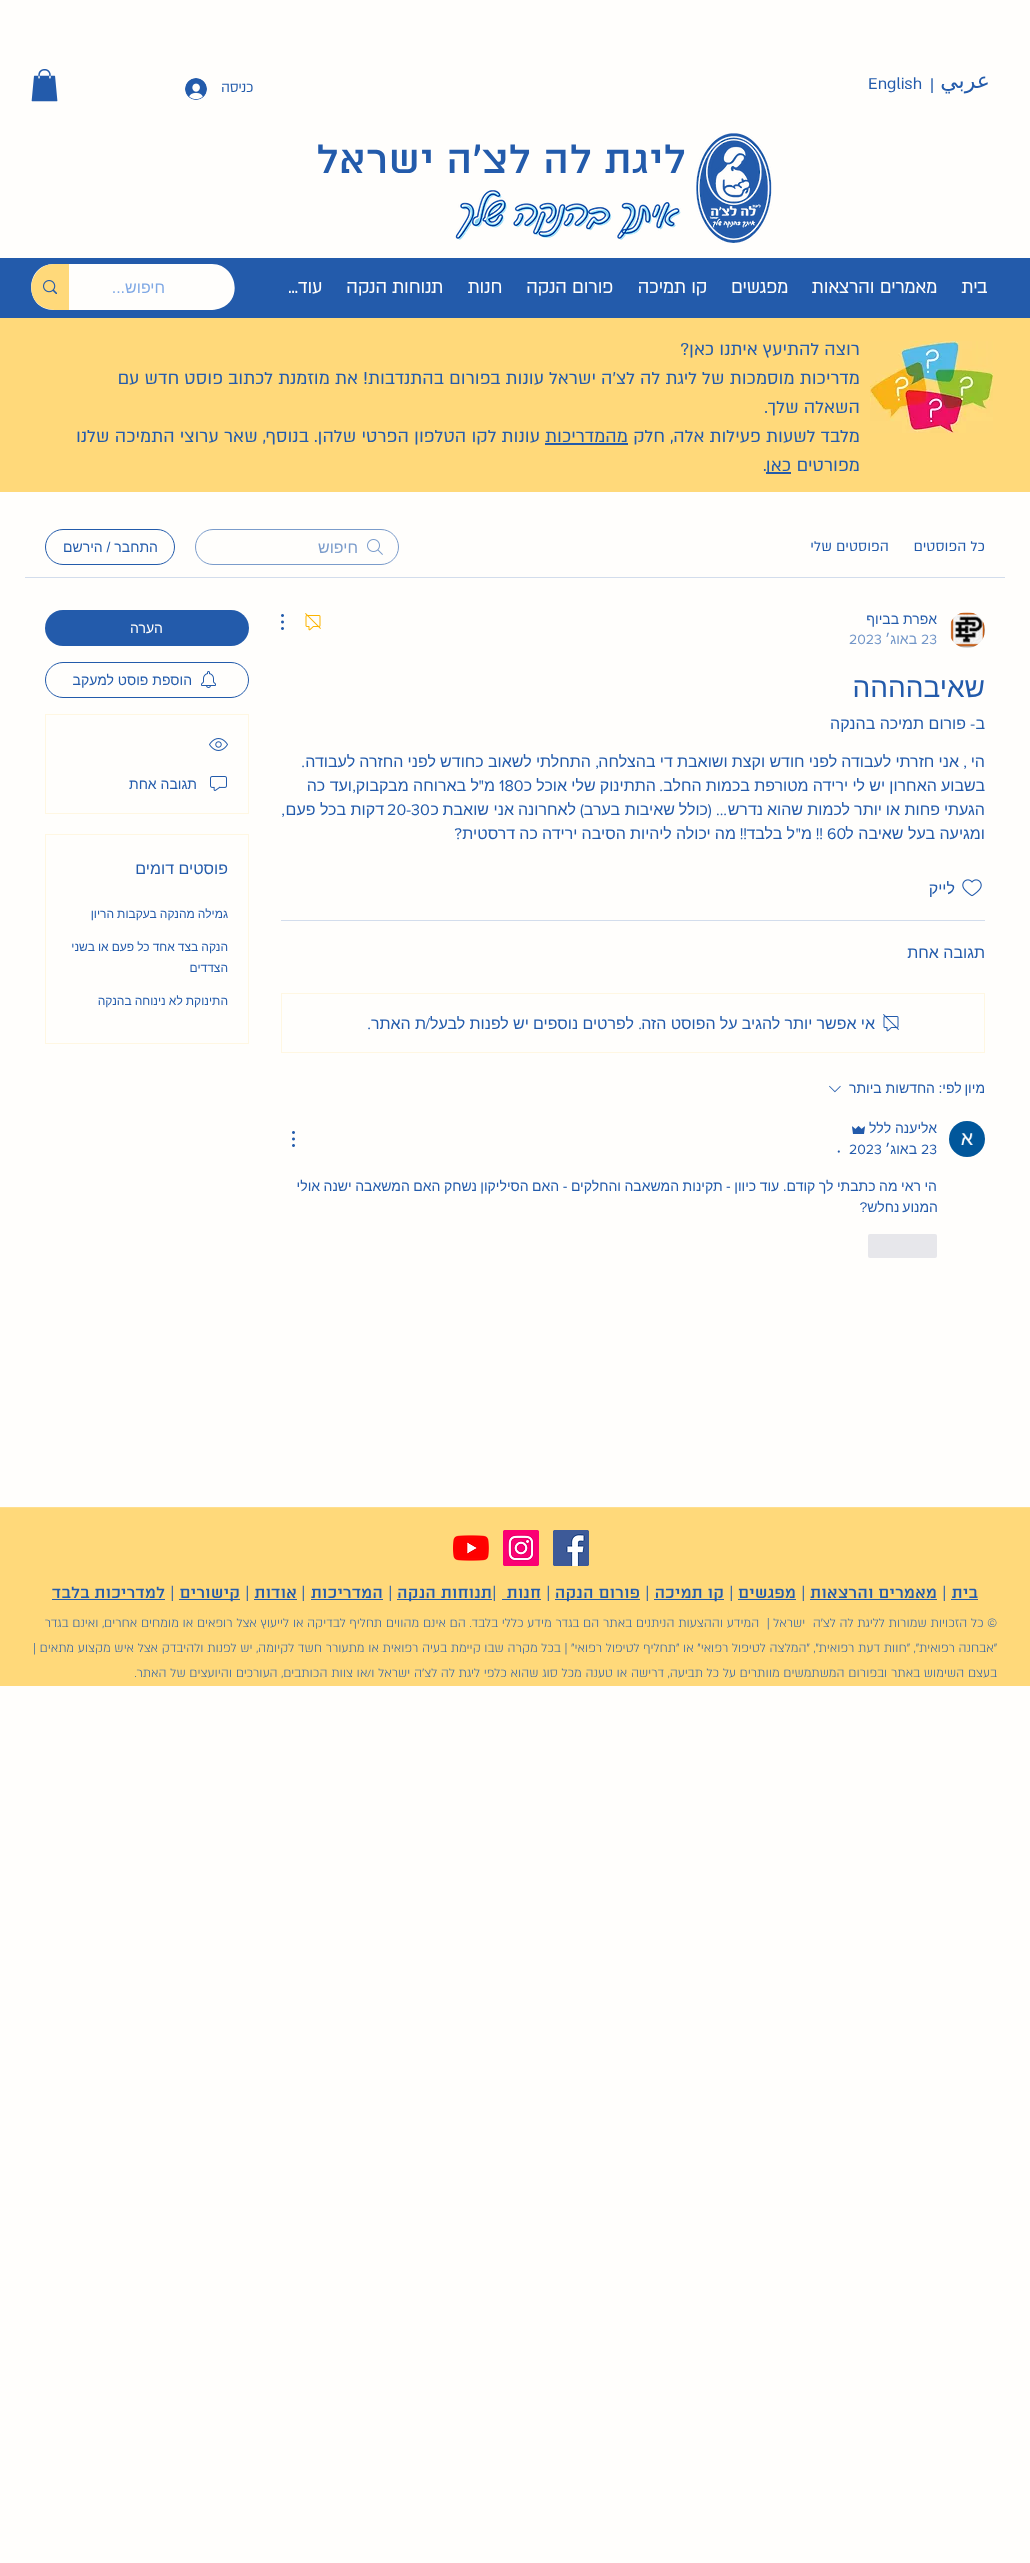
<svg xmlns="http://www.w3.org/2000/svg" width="1030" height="2563">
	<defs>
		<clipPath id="clip1"><rect x="31" y="264" width="204" height="46" /></clipPath>
		<clipPath id="clip2"><rect x="281" y="750" width="704" height="96" /></clipPath>
		<clipPath id="clip3"><rect x="281" y="1176" width="656" height="42" /></clipPath>
		<clipPath id="clip4"><rect x="66" y="936" width="162" height="42" /></clipPath>
	</defs>
	<rect width="100%" height="100%" fill="#FFFEFC" />
	<text x="990" y="88" font-family="DejaVu Sans" font-size="22" direction="rtl" fill="#235BAB">عربي</text>
	<g font-family="'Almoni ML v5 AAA'" font-size="18" fill="#235BAB">
		<text x="930" y="90">|</text>
		<text x="868" y="89">English</text>
	</g>
	<text x="253" y="92" font-family="'Almoni ML v5 AAA'" font-size="15" font-weight="700" direction="rtl" fill="#235BAB">כניסה</text>
	<image x="185" y="78" width="22" height="22" href="assets/img1.png" />
	<image x="31" y="69" width="27" height="33" href="assets/img2.png" />
	<image x="696" y="133" width="76" height="110" href="assets/img3.png" />
	<text x="686" y="173" font-family="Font" font-size="45" font-weight="500" direction="rtl" fill="#235BAB">ליגת לה לצ'ה ישראל</text>
	<image x="455" y="190" width="226" height="50" href="assets/img4.png" />
	<rect x="0" y="258" width="1030" height="60" fill="#235BAB" />
	<g font-family="'Almoni ML v5 AAA'" font-size="20" font-weight="700" direction="rtl" fill="#FFFEFC">
		<text x="987" y="293">בית</text>
		<text x="937" y="293">מאמרים והרצאות</text>
		<text x="788" y="293">מפגשים</text>
		<text x="707" y="293">קו תמיכה</text>
		<text x="613" y="293">פורום הנקה</text>
		<text x="502" y="293">חנות</text>
		<text x="443" y="293">תנוחות הנקה</text>
		<text x="322" y="293">עוד...</text>
	</g>
	<g clip-path="url(#clip1)">
		<path d="M54 264C24 264 23 310 54 310H185C192 310 211 312 221 308C244 299 236 264 212 264Z" fill="#FFFEFC" />
	</g>
	<text x="165" y="293" font-family="Liberation Sans" font-size="16" direction="rtl" fill="#80A9E5">חיפוש...</text>
	<g clip-path="url(#clip1)">
		<path d="M54 264C30 264 22 299 45 308C53 311 61 310 69 310V264Z" fill="#FFD97A" />
	</g>
	<image x="43" y="280" width="14" height="14" href="assets/img5.png" />
	<rect x="0" y="318" width="1030" height="174" fill="#FFD97A" />
	<image x="870" y="341" width="123" height="92" href="assets/img6.png" />
	<g font-family="'Almoni ML v5 AAA'" font-size="20" direction="rtl" fill="#235BAB">
		<text x="860" y="355">רוצה להתיעץ איתנו כאן?</text>
		<text x="860" y="384">מדריכות מוסמכות של ליגת לה לצ’ה ישראל עונות בפורום בהתנדבות! את מוזמנת לכתוב פוסט חדש עם</text>
		<text x="860" y="413">השאלה שלך.</text>
		<text x="860" y="442">מלבד לשעות פעילות אלה, חלק</text>
		<text x="628" y="442">מהמדריכות</text>
	</g>
	<rect x="545" y="443" width="83" height="2" fill="#235BAB" />
	<g font-family="'Almoni ML v5 AAA'" font-size="20" direction="rtl" fill="#235BAB">
		<text x="540" y="442">עונות לקו הטלפון הפרטי שלהן. בנוסף, שאר ערוצי התמיכה שלנו</text>
		<text x="860" y="471">מפורטים</text>
	</g>
	<rect x="766" y="472" width="25" height="2" fill="#235BAB" />
	<text x="791" y="471" font-family="'Almoni ML v5 AAA'" font-size="20" direction="rtl" fill="#235BAB">כאן</text>
	<text x="763" y="471" font-family="'Almoni ML v5 AAA'" font-size="20" fill="#235BAB">.</text>
	<rect x="25" y="577" width="980" height="1" fill="#D3DDEC" />
	<g font-family="'Almoni ML v5 AAA'" font-size="16" direction="rtl" fill="#235BAB">
		<text x="985" y="551">כל הפוסטים</text>
		<text x="889" y="551">הפוסטים שלי</text>
	</g>
	<image x="367" y="539" width="16" height="16" href="assets/img7.png" />
	<rect x="195.5" y="529.5" width="203" height="35" rx="17.5" fill="none" stroke="#7B9CCB" />
	<text x="358" y="553" font-family="Liberation Sans" font-size="16" direction="rtl" fill="#7B9CCB">חיפוש</text>
	<rect x="45.5" y="529.5" width="129" height="35" rx="17.5" fill="none" stroke="#235BAB" />
	<text x="158" y="552" font-family="Liberation Sans" font-size="14" direction="rtl" fill="#235BAB">התחבר / הירשם</text>
	<image x="950" y="612" width="35" height="36" href="assets/img8.png" />
	<text x="937" y="624" font-family="Liberation Sans" font-size="14" direction="rtl" fill="#235BAB">אפרת בביוף</text>
	<text x="921" y="644" font-family="'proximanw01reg'" font-size="14" fill="#7296C8">23</text>
	<text x="917" y="644" font-family="Liberation Sans" font-size="14" direction="rtl" fill="#7296C8">באוג׳</text>
	<text x="849" y="644" font-family="'proximanw01reg'" font-size="14" fill="#7296C8">2023</text>
	<image x="305" y="613" width="16" height="18" href="assets/img9.png" />
	<image x="281" y="614" width="3" height="16" href="assets/img10.png" />
	<text x="985" y="697" font-family="Liberation Sans" font-size="28" direction="rtl" fill="#235BAB">שאיבהההה</text>
	<text x="985" y="729" font-family="Liberation Sans" font-size="16" direction="rtl" fill="#235BAB">ב</text>
	<text x="975" y="729" font-family="'proximanw01reg'" font-size="16" direction="rtl" fill="#235BAB">-</text>
	<g font-family="Liberation Sans" font-size="16" direction="rtl" fill="#235BAB">
		<text x="966" y="729">פורום תמיכה בהנקה</text>
		<text x="985" y="767">הי</text>
	</g>
	<text x="967" y="767" font-family="'proximanw01reg'" font-size="16" direction="rtl" fill="#235BAB">,</text>
	<text x="959" y="767" word-spacing="-0.25" font-family="Liberation Sans" font-size="16" direction="rtl" fill="#235BAB">אני חזרתי לעבודה לפני חודש וקצת ושואבת די בהצלחה</text>
	<text x="599" y="767" font-family="'proximanw01reg'" font-size="16" direction="rtl" fill="#235BAB">,</text>
	<text x="591" y="767" word-spacing="-0.25" font-family="Liberation Sans" font-size="16" direction="rtl" fill="#235BAB">התחלתי לשאוב כחודש לפני החזרה לעבודה</text>
	<text x="305" y="767" font-family="'proximanw01reg'" font-size="16" direction="rtl" fill="#235BAB">.</text>
	<g clip-path="url(#clip2)">
		<text x="985" y="791" word-spacing="-0.25" font-family="Liberation Sans" font-size="16" direction="rtl" fill="#235BAB">בשבוע האחרון יש לי ירידה מטורפת בכמות החלב</text>
	</g>
	<text x="663" y="791" font-family="'proximanw01reg'" font-size="16" direction="rtl" fill="#235BAB">.</text>
	<text x="656" y="791" word-spacing="-0.25" font-family="Liberation Sans" font-size="16" direction="rtl" fill="#235BAB">התתינוק שלי אוכל כ</text>
	<text x="499" y="791" font-family="'proximanw01reg'" font-size="16" fill="#235BAB">180</text>
	<text x="495" y="791" font-family="Liberation Sans" font-size="16" direction="rtl" fill="#235BAB">מ</text>
	<text x="484" y="791" font-family="'proximanw01reg'" font-size="16" direction="rtl" fill="#235BAB">"</text>
	<text x="479" y="791" font-family="Liberation Sans" font-size="16" direction="rtl" fill="#235BAB">ל בארוחה מבקבוק</text>
	<text x="356" y="791" font-family="'proximanw01reg'" font-size="16" direction="rtl" fill="#235BAB">,</text>
	<g font-family="Liberation Sans" font-size="16" direction="rtl" fill="#235BAB">
		<text x="352" y="791">ועד כה</text>
		<text x="985" y="815">הגעתי</text>
		<text x="940" y="815">פחות</text>
		<text x="900" y="815">או</text>
		<text x="882" y="815">יותר</text>
		<text x="850" y="815">לכמות</text>
		<text x="803" y="815">שהוא</text>
	</g>
	<text x="727" y="815" font-family="'proximanw01reg'" font-size="16" direction="rtl" fill="#235BAB">... (</text>
	<g font-family="Liberation Sans" font-size="16" direction="rtl" fill="#235BAB">
		<text x="763" y="815">נדרש</text>
		<text x="708" y="815">כולל</text>
		<text x="675" y="815">שאיבות</text>
		<text x="620" y="815">בערב</text>
	</g>
	<text x="584" y="815" font-family="'proximanw01reg'" font-size="16" direction="rtl" fill="#235BAB">)</text>
	<g font-family="Liberation Sans" font-size="16" direction="rtl" fill="#235BAB">
		<text x="576" y="815">לאחרונה</text>
		<text x="514" y="815">אני</text>
		<text x="489" y="815">שואבת</text>
		<text x="439" y="815">כ</text>
	</g>
	<text x="387" y="815" font-family="'proximanw01reg'" font-size="16" fill="#235BAB">20-30</text>
	<text x="384" y="815" font-family="Liberation Sans" font-size="16" direction="rtl" fill="#235BAB">דקות בכל פעם</text>
	<text x="285" y="815" font-family="'proximanw01reg'" font-size="16" direction="rtl" fill="#235BAB">,</text>
	<text x="985" y="839" font-family="Liberation Sans" font-size="16" direction="rtl" fill="#235BAB">ומגיעה בעל שאיבה ל</text>
	<text x="827" y="839" font-family="'proximanw01reg'" font-size="16" fill="#235BAB">60</text>
	<text x="823" y="839" font-family="'proximanw01reg'" font-size="16" direction="rtl" fill="#235BAB">!!</text>
	<text x="812" y="839" font-family="Liberation Sans" font-size="16" direction="rtl" fill="#235BAB">מ</text>
	<text x="801" y="839" font-family="'proximanw01reg'" font-size="16" direction="rtl" fill="#235BAB">"</text>
	<text x="795" y="839" word-spacing="-0.25" font-family="Liberation Sans" font-size="16" direction="rtl" fill="#235BAB">ל בלבד</text>
	<text x="747" y="839" font-family="'proximanw01reg'" font-size="16" direction="rtl" fill="#235BAB">!!</text>
	<text x="736" y="839" word-spacing="-0.25" font-family="Liberation Sans" font-size="16" direction="rtl" fill="#235BAB">מה יכולה ליהיות הסיבה ירידה כה דרסטית</text>
	<text x="462" y="839" font-family="'proximanw01reg'" font-size="16" direction="rtl" fill="#235BAB">?</text>
	<image x="962" y="879" width="20" height="18" href="assets/img11.png" />
	<text x="955" y="894" font-family="Liberation Sans" font-size="16" direction="rtl" fill="#235BAB">לייק</text>
	<rect x="281" y="920" width="704" height="1" fill="#D3DDEC" />
	<text x="985" y="958" font-family="Liberation Sans" font-size="16" direction="rtl" fill="#235BAB">תגובה אחת</text>
	<rect x="281.5" y="993.5" width="703" height="59" fill="none" stroke="#FFF7E2" />
	<image x="883" y="1014" width="16" height="18" href="assets/img12.png" />
	<text x="875" y="1029" word-spacing="-0.25" font-family="Liberation Sans" font-size="16" direction="rtl" fill="#235BAB">אי אפשר יותר להגיב על הפוסט הזה</text>
	<g font-family="'proximanw01reg'" font-size="16" direction="rtl" fill="#235BAB">
		<text x="642" y="1029">.</text>
		<text x="430" y="1029">/</text>
	</g>
	<g font-family="Liberation Sans" font-size="16" direction="rtl" fill="#235BAB">
		<text x="634" y="1029" word-spacing="-0.25">לפרטים נוספים יש לפנות לבעל</text>
		<text x="426" y="1029" word-spacing="-0.25">ת האתר</text>
	</g>
	<text x="371" y="1029" font-family="'proximanw01reg'" font-size="16" direction="rtl" fill="#235BAB">.</text>
	<g font-family="Liberation Sans" font-size="14" direction="rtl" fill="#235BAB">
		<text x="985" y="1093" word-spacing="-1">מיון לפי:</text>
		<text x="935" y="1093">החדשות ביותר</text>
	</g>
	<image x="829" y="1085" width="12" height="8" href="assets/img13.png" />
	<image x="949" y="1121" width="36" height="36" href="assets/img14.png" />
	<text x="937" y="1133" font-family="Liberation Sans" font-size="14" direction="rtl" fill="#235BAB">אליענה ללל</text>
	<image x="852" y="1126" width="13" height="8" href="assets/img15.png" />
	<text x="921" y="1154" font-family="'proximanw01reg'" font-size="14" fill="#235BAB">23</text>
	<text x="917" y="1154" font-family="Liberation Sans" font-size="14" direction="rtl" fill="#235BAB">באוג׳</text>
	<text x="849" y="1154" font-family="'proximanw01reg'" font-size="14" fill="#235BAB">2023</text>
	<text x="837" y="1154" font-family="'proximanw01reg'" font-size="10" fill="#235BAB">•</text>
	<image x="292" y="1131" width="3" height="16" href="assets/img16.png" />
	<g clip-path="url(#clip3)">
		<g font-family="Liberation Sans" font-size="14" direction="rtl" fill="#235BAB">
			<text x="937" y="1191" word-spacing="-0.4">הי ראי מה כתבתי לך קודם. עוד כיוון - תקינות המשאבה והחלקים - האם הסיליקון נשחק האם המשאבה ישנה אולי</text>
			<text x="938" y="1212" word-spacing="-1">המנוע נחלש?</text>
		</g>
	</g>
	<rect x="868" y="1234" width="69" height="24" rx="2" fill="#E7E7EB" />
	<rect x="45" y="610" width="204" height="36" rx="18" fill="#235BAB" />
	<text x="163" y="633" font-family="Liberation Sans" font-size="14" direction="rtl" fill="#FFFEFC">הערה</text>
	<rect x="45.5" y="662.5" width="203" height="35" rx="17.5" fill="none" stroke="#235BAB" />
	<image x="201" y="671" width="15" height="17" href="assets/img17.png" />
	<text x="192" y="685" font-family="Liberation Sans" font-size="14" direction="rtl" fill="#235BAB">הוספת פוסט למעקב</text>
	<rect x="45.5" y="714.5" width="203" height="99" fill="none" stroke="#FFF7E2" />
	<image x="209" y="738" width="19" height="13" href="assets/img18.png" />
	<image x="210" y="776" width="17" height="15" href="assets/img19.png" />
	<text x="197" y="789" font-family="Liberation Sans" font-size="14" direction="rtl" fill="#235BAB">תגובה אחת</text>
	<rect x="45.5" y="834.5" width="203" height="209" fill="none" stroke="#FFF7E2" />
	<text x="228" y="874" font-family="Liberation Sans" font-size="16" direction="rtl" fill="#235BAB">פוסטים דומים</text>
	<text x="228" y="918" word-spacing="-0.25" font-family="Liberation Sans" font-size="12" direction="rtl" fill="#235BAB">גמילה מהנקה בעקבות הריון</text>
	<g clip-path="url(#clip4)">
		<text x="228" y="951" word-spacing="-0.25" font-family="Liberation Sans" font-size="12" direction="rtl" fill="#235BAB">הנקה בצד אחד כל פעם או בשני</text>
	</g>
	<g font-family="Liberation Sans" font-size="12" direction="rtl" fill="#235BAB">
		<text x="228" y="972">הצדדים</text>
		<text x="228" y="1005" word-spacing="-0.25">התינוקת לא נינוחה בהנקה</text>
	</g>
	<rect x="0" y="1508" width="1030" height="178" fill="#FFD97A" />
	<rect x="0" y="1507" width="1030" height="1" fill="#FFDF8E" />
	<image x="553" y="1530" width="36" height="36" href="assets/img20.png" />
	<image x="503" y="1530" width="36" height="36" href="assets/img21.png" />
	<image x="453" y="1535" width="36" height="26" href="assets/img22.png" />
	<text x="978" y="1598" font-family="Font" font-size="18" font-weight="500" direction="rtl" fill="#235BAB">בית</text>
	<rect x="951" y="1599" width="27" height="1" fill="#235BAB" />
	<text x="942" y="1598" font-family="Font" font-size="18" font-weight="500" fill="#235BAB">|</text>
	<text x="937" y="1598" font-family="Font" font-size="18" font-weight="500" direction="rtl" fill="#235BAB">מאמרים והרצאות</text>
	<rect x="810" y="1599" width="127" height="1" fill="#235BAB" />
	<text x="801" y="1598" font-family="Font" font-size="18" font-weight="500" fill="#235BAB">|</text>
	<text x="796" y="1598" font-family="Font" font-size="18" font-weight="500" direction="rtl" fill="#235BAB">מפגשים</text>
	<rect x="738" y="1599" width="58" height="1" fill="#235BAB" />
	<text x="729" y="1598" font-family="Font" font-size="18" font-weight="500" fill="#235BAB">|</text>
	<rect x="654" y="1599" width="70" height="1" fill="#235BAB" />
	<text x="724" y="1598" font-family="Font" font-size="18" font-weight="500" direction="rtl" fill="#235BAB">קו תמיכה</text>
	<text x="645" y="1598" font-family="Font" font-size="18" font-weight="500" fill="#235BAB">|</text>
	<rect x="555" y="1599" width="85" height="1" fill="#235BAB" />
	<text x="640" y="1598" font-family="Font" font-size="18" font-weight="500" direction="rtl" fill="#235BAB">פורום הנקה</text>
	<text x="546" y="1598" font-family="Font" font-size="18" font-weight="500" fill="#235BAB">|</text>
	<text x="541" y="1598" font-family="Font" font-size="18" font-weight="500" direction="rtl" fill="#235BAB">חנות</text>
	<rect x="502" y="1599" width="39" height="1" fill="#235BAB" />
	<text x="492" y="1598" font-family="Font" font-size="18" font-weight="500" fill="#235BAB">|</text>
	<rect x="397" y="1599" width="95" height="1" fill="#235BAB" />
	<text x="492" y="1598" font-family="Font" font-size="18" font-weight="500" direction="rtl" fill="#235BAB">תנוחות הנקה</text>
	<text x="388" y="1598" font-family="Font" font-size="18" font-weight="500" fill="#235BAB">|</text>
	<text x="383" y="1598" font-family="Font" font-size="18" font-weight="500" direction="rtl" fill="#235BAB">המדריכות</text>
	<rect x="311" y="1599" width="72" height="1" fill="#235BAB" />
	<text x="301" y="1598" font-family="Font" font-size="18" font-weight="500" fill="#235BAB">|</text>
	<text x="297" y="1598" font-family="Font" font-size="18" font-weight="500" direction="rtl" fill="#235BAB">אודות</text>
	<rect x="254" y="1599" width="43" height="1" fill="#235BAB" />
	<text x="245" y="1598" font-family="Font" font-size="18" font-weight="500" fill="#235BAB">|</text>
	<rect x="179" y="1599" width="61" height="1" fill="#235BAB" />
	<text x="240" y="1598" font-family="Font" font-size="18" font-weight="500" direction="rtl" fill="#235BAB">קישורים</text>
	<text x="170" y="1598" font-family="Font" font-size="18" font-weight="500" fill="#235BAB">|</text>
	<text x="165" y="1598" font-family="Font" font-size="18" font-weight="500" direction="rtl" fill="#235BAB">למדריכות בלבד</text>
	<rect x="52" y="1599" width="113" height="1" fill="#235BAB" />
	<g font-family="'Almoni ML v5 AAA'" font-size="14" font-weight="300" direction="rtl" fill="#235BAB">
		<text x="997" y="1627" xml:space="preserve">© כל הזכויות שמורות לליגת לה לצ'ה  ישראל |  המידע וההצעות הניתנים באתר הם בגדר מידע כללי בלבד. הם אינם מהווים תחליף לבדיקה או לייעוץ אצל רופאים או מומחים אחרים, ואינם בגדר</text>
		<text x="997" y="1652">"אבחנה רפואית", "חוות דעת רפואית", "המלצה לטיפול רפואי" או "תחליף לטיפול רפואי" | בכל מקרה שבו קיימת בעיה רפואית או מתעורר חשד לקיומה, יש לפנות ולהיבדק אצל איש מקצוע מתאים |</text>
		<text x="997" y="1677">בעצם השימוש באתר ובפורום המשתמשים מוותרים על כל תביעה, דרישה או טענה מכל סוג שהוא כלפי ליגת לה לצ'ה ישראל ו/או צוות הכותבים, העורכים והיועצים של האתר.</text>
	</g>
</svg>
